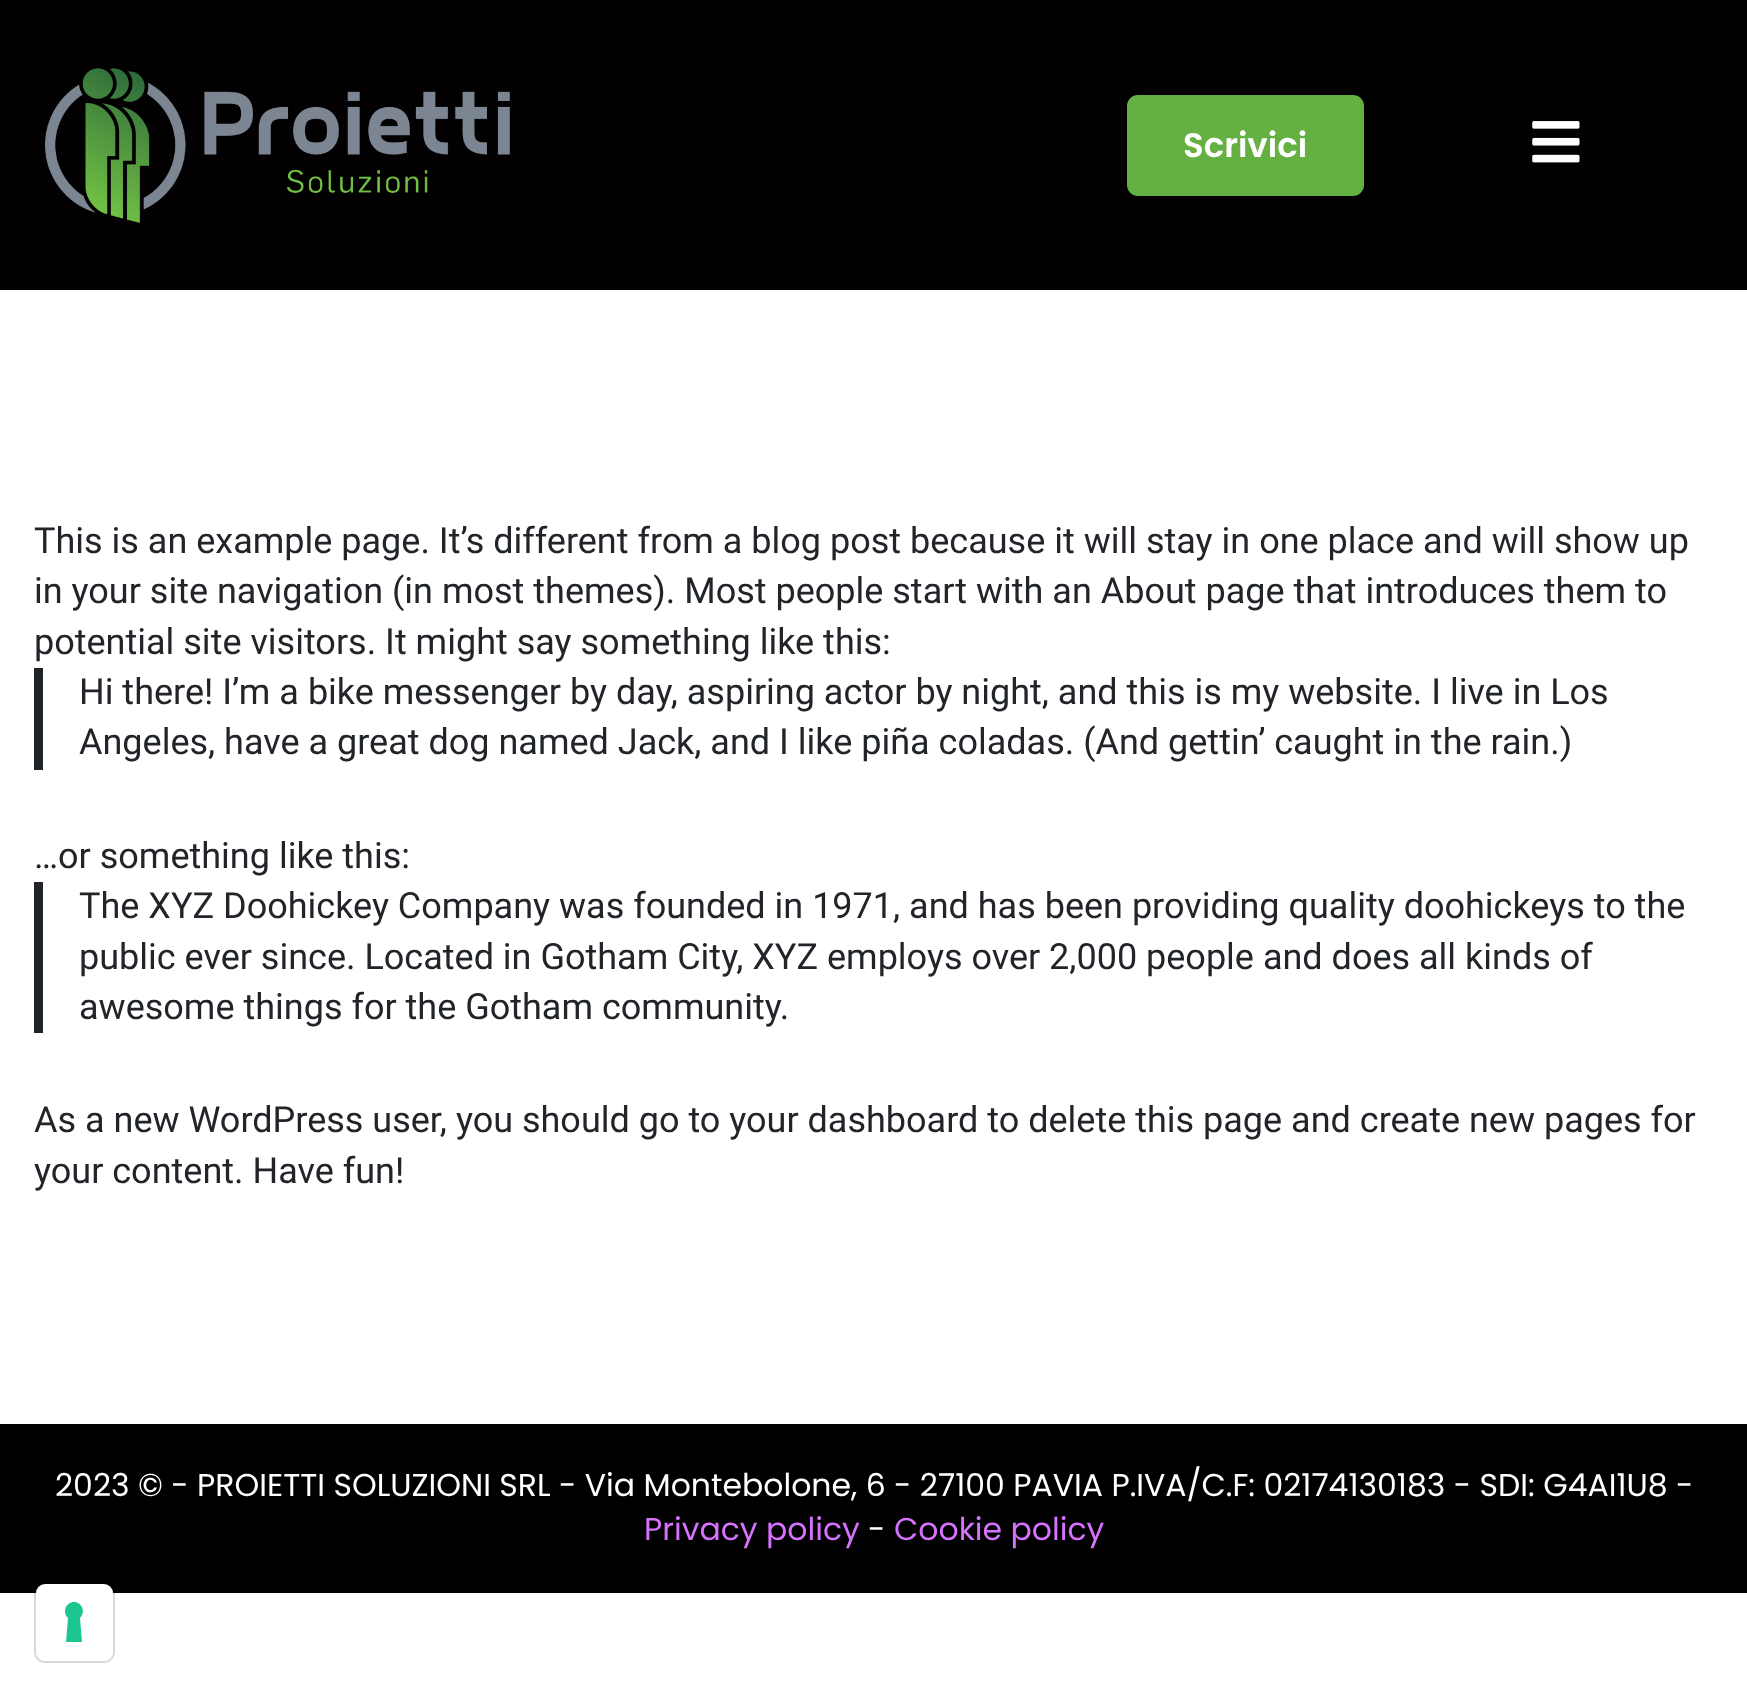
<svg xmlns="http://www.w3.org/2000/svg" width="1747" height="1696">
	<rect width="100%" height="100%" fill="#FFFFFF" />
	<rect x="0" y="0" width="1747" height="290" fill="#020000" />
	<image x="45" y="68" width="465" height="155" href="assets/img1.png" />
	<rect x="1127" y="95" width="237" height="101" rx="11" fill="#65B043" />
	<text x="1183" y="157" font-family="Poppins" font-size="34" font-weight="600" fill="#FFFFFF">Scrivici</text>
	<image x="1532" y="121" width="48" height="42" href="assets/img2.png" />
	<g font-family="Roboto" font-size="36" fill="#212529">
		<text x="34" y="553">This is an example page. It’s different from a blog post because it will stay in one place and will show up</text>
		<text x="34" y="603">in your site navigation (in most themes). Most people start with an About page that introduces them to</text>
		<text x="34" y="654">potential site visitors. It might say something like this:</text>
	</g>
	<rect x="34" y="668" width="9" height="102" fill="#212529" />
	<g font-family="Roboto" font-size="36" fill="#212529">
		<text x="79" y="704">Hi there! I’m a bike messenger by day, aspiring actor by night, and this is my website. I live in Los</text>
		<text x="79" y="754">Angeles, have a great dog named Jack, and I like piña coladas. (And gettin’ caught in the rain.)</text>
		<text x="34" y="868">…or something like this:</text>
	</g>
	<rect x="34" y="882" width="9" height="151" fill="#212529" />
	<g font-family="Roboto" font-size="36" fill="#212529">
		<text x="79" y="918">The XYZ Doohickey Company was founded in 1971, and has been providing quality doohickeys to the</text>
		<text x="79" y="969">public ever since. Located in Gotham City, XYZ employs over 2,000 people and does all kinds of</text>
		<text x="79" y="1019">awesome things for the Gotham community.</text>
		<text x="34" y="1132">As a new WordPress user, you should go to your dashboard to delete this page and create new pages for</text>
		<text x="34" y="1183">your content. Have fun!</text>
	</g>
	<rect x="0" y="1424" width="1747" height="169" fill="#000000" />
	<text x="55" y="1496" font-family="Poppins" font-size="31.5" fill="#FFFFFF">2023 © - PROIETTI SOLUZIONI SRL - Via Montebolone, 6 - 27100 PAVIA P.IVA/C.F: 02174130183 - SDI: G4AI1U8 -</text>
	<text x="644" y="1540" font-family="Poppins" font-size="31.5" fill="#D772FE">Privacy policy</text>
	<text x="868" y="1540" font-family="Poppins" font-size="31.5" fill="#FFFFFF">-</text>
	<text x="894" y="1540" font-family="Poppins" font-size="31.5" fill="#D772FE">Cookie policy</text>
	<rect x="35" y="1583" width="79" height="79" rx="10" fill="none" stroke="#000000" stroke-opacity="0.15" stroke-width="2" />
	<rect x="36" y="1584" width="77" height="77" rx="9" fill="#FFFFFF" />
	<path d="M74 1602C82 1602 86 1612 80 1618L82 1642H66L68 1618C62 1612 66 1602 74 1602Z" fill="#1CC691" fill-rule="evenodd" />
</svg>
